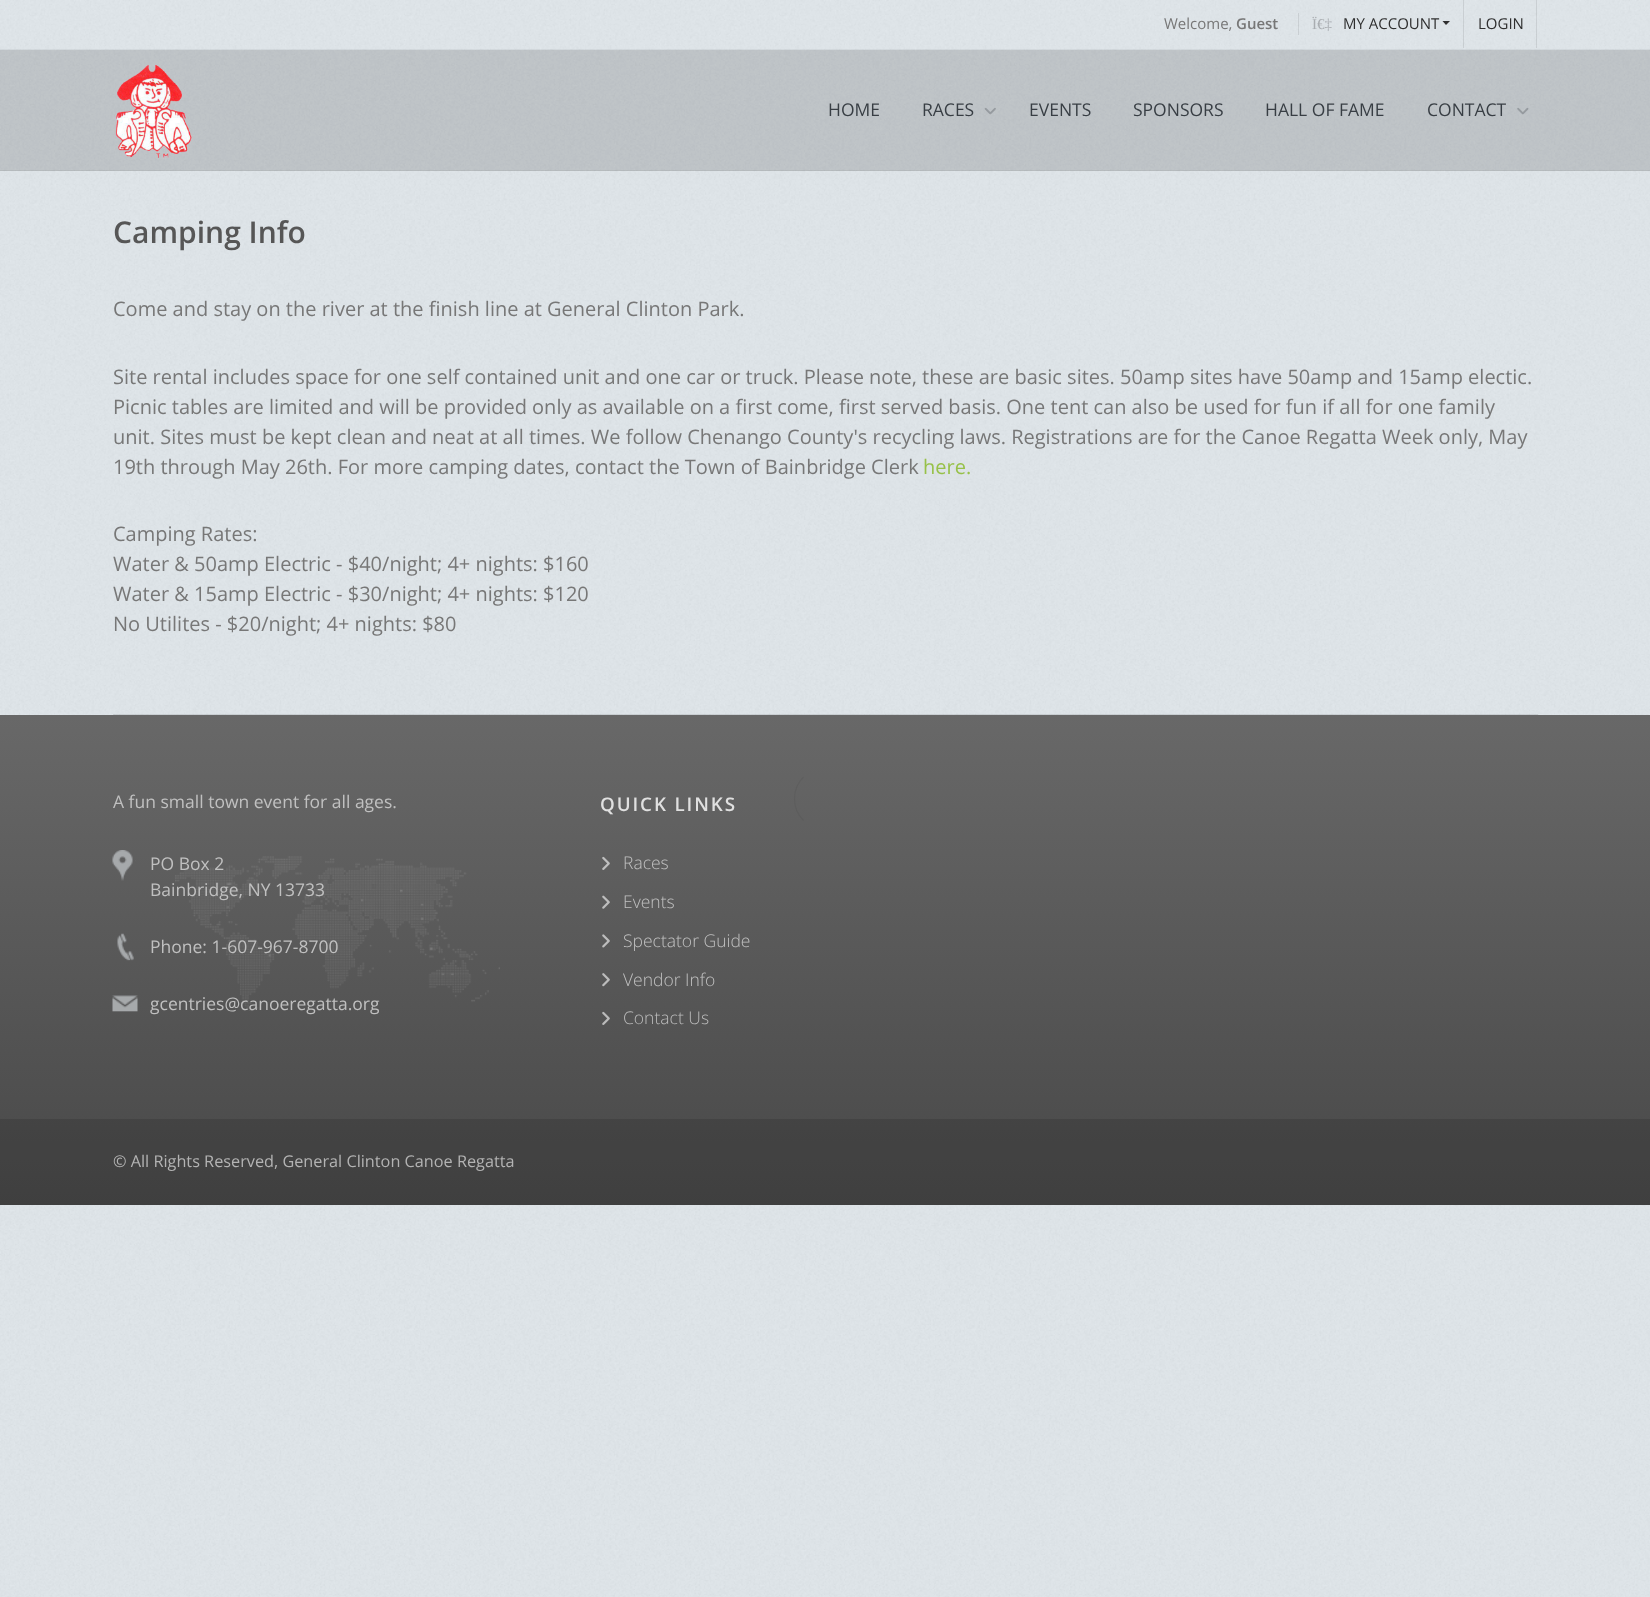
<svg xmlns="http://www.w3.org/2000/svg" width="1650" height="1597">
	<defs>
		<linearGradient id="g1" gradientUnits="userSpaceOnUse" x1="825" y1="715" x2="825" y2="1205"><stop offset="0" stop-color="#686868" /><stop offset="1" stop-color="#484848" /></linearGradient>
	</defs>
	<rect width="100%" height="100%" fill="#E0E7EB" />
	<image x="0" y="50" width="1650" height="1547" href="assets/img1.png" />
	<image x="0" y="0" width="1650" height="50" href="assets/img2.png" />
	<rect x="0" y="49" width="1650" height="1" fill="#1C1C1C" fill-opacity="0.05" />
	<rect x="1298" y="13" width="1" height="22" fill="#1C1C1C" fill-opacity="0.1" />
	<text x="1164" y="29" font-family="Open Sans" font-size="15" fill="#777777">Welcome,</text>
	<text x="1236" y="29" font-family="Open Sans" font-size="15" font-weight="600" fill="#777777">Guest</text>
	<rect x="1463" y="0" width="1" height="48" fill="#1C1C1C" fill-opacity="0.1" />
	<text x="1312" y="29" font-family="Liberation Serif" font-size="15" fill="#A9ADB1">Ï€‡</text>
	<text x="1343" y="29" font-family="Open Sans" font-size="15" fill="#2F2F2F">MY ACCOUNT</text>
	<path d="M1442.5 21H1450L1446 25Z" fill="#2F2F2F" />
	<rect x="1536" y="0" width="1" height="48" fill="#1C1C1C" fill-opacity="0.1" />
	<text x="1478" y="29" font-family="Open Sans" font-size="15" fill="#2F2F2F">LOGIN</text>
	<rect x="0" y="50" width="1650" height="121" fill="#1C1C1C" fill-opacity="0.16" />
	<rect x="0" y="170" width="1650" height="1" fill="#1C1C1C" fill-opacity="0.05" />
	<image x="113" y="64" width="79" height="95" href="assets/img3.png" />
	<g font-family="Open Sans" font-size="17.5" fill="#383E44">
		<text x="828" y="116">HOME</text>
		<text x="922" y="116">RACES</text>
	</g>
	<image x="984" y="107" width="12" height="8" href="assets/img4.png" />
	<g font-family="Open Sans" font-size="17.5" fill="#383E44">
		<text x="1029" y="116">EVENTS</text>
		<text x="1133" y="116">SPONSORS</text>
		<text x="1265" y="116">HALL OF FAME</text>
		<text x="1427" y="116">CONTACT</text>
	</g>
	<image x="1517" y="107" width="12" height="8" href="assets/img5.png" />
	<rect x="113" y="714" width="1425" height="1" fill="#1C1C1C" fill-opacity="0.1" />
	<text x="113" y="243" font-family="Open Sans" font-size="30" font-weight="600" fill="#565656">Camping Info</text>
	<g font-family="Open Sans" font-size="20" fill="#777777">
		<text x="113" y="316">Come and stay on the river at the finish line at General Clinton Park.</text>
		<text x="113" y="384">Site rental includes space for one self contained unit and one car or truck. Please note, these are basic sites. 50amp sites have 50amp and 15amp electic.</text>
		<text x="113" y="414">Picnic tables are limited and will be provided only as available on a first come, first served basis. One tent can also be used for fun if all for one family</text>
		<text x="113" y="444">unit. Sites must be kept clean and neat at all times. We follow Chenango County's recycling laws. Registrations are for the Canoe Regatta Week only, May</text>
		<text x="113" y="474">19th through May 26th. For more camping dates, contact the Town of Bainbridge Clerk</text>
	</g>
	<text x="923" y="474" font-family="Open Sans" font-size="20" fill="#97C149">here.</text>
	<g font-family="Open Sans" font-size="20" fill="#777777">
		<text x="113" y="541">Camping Rates:</text>
		<text x="113" y="571">Water &amp; 50amp Electric - $40/night; 4+ nights: $160</text>
		<text x="113" y="601">Water &amp; 15amp Electric - $30/night; 4+ nights: $120</text>
		<text x="113" y="631">No Utilites - $20/night; 4+ nights: $80</text>
	</g>
	<rect x="0" y="715" width="1650" height="490" fill="url(#g1)" />
	<text x="113" y="808" font-family="Open Sans" font-size="17.5" fill="#C0C0C0">A fun small town event for all ages.</text>
	<image x="175" y="856" width="325" height="155" href="assets/img6.png" />
	<image x="112" y="850" width="24" height="31" href="assets/img7.png" />
	<g font-family="Open Sans" font-size="17.5" fill="#C0C0C0">
		<text x="150" y="870">PO Box 2</text>
		<text x="150" y="896">Bainbridge, NY 13733</text>
	</g>
	<image x="117" y="933" width="17" height="28" href="assets/img8.png" />
	<text x="150" y="953" font-family="Open Sans" font-size="17.5" fill="#C0C0C0">Phone: 1-607-967-8700</text>
	<image x="112" y="995" width="26" height="17" href="assets/img9.png" />
	<text x="150" y="1010" font-family="Open Sans" font-size="17.5" fill="#C0C0C0">gcentries@canoeregatta.org</text>
	<text x="600" y="811" font-family="Open Sans" font-size="18.75" font-weight="600" letter-spacing="1.9" fill="#E0E0E0">QUICK LINKS</text>
	<image x="602" y="856" width="8" height="14" href="assets/img10.png" />
	<text x="623" y="869" font-family="Open Sans" font-size="17.5" font-weight="300" fill="#C0C0C0">Races</text>
	<image x="602" y="895" width="8" height="14" href="assets/img11.png" />
	<text x="623" y="908" font-family="Open Sans" font-size="17.5" font-weight="300" fill="#C0C0C0">Events</text>
	<image x="602" y="934" width="8" height="14" href="assets/img12.png" />
	<text x="623" y="947" font-family="Open Sans" font-size="17.5" font-weight="300" fill="#C0C0C0">Spectator Guide</text>
	<image x="602" y="973" width="8" height="14" href="assets/img13.png" />
	<text x="623" y="986" font-family="Open Sans" font-size="17.5" font-weight="300" fill="#C0C0C0">Vendor Info</text>
	<image x="602" y="1011" width="8" height="14" href="assets/img14.png" />
	<text x="623" y="1024" font-family="Open Sans" font-size="17.5" font-weight="300" fill="#BABABA">Contact Us</text>
	<rect x="0" y="1119" width="1650" height="86" fill="#1C1C1C" fill-opacity="0.2" />
	<text x="113" y="1167" font-family="Open Sans" font-size="16.25" fill="#B3B3B3">© All Rights Reserved, General Clinton Canoe Regatta</text>
	<path d="M803.5 820.5C791.5 808.5 791.5 789 803.5 777" fill="none" stroke="#000000" stroke-opacity="0.05" stroke-width="1.2" />
</svg>
